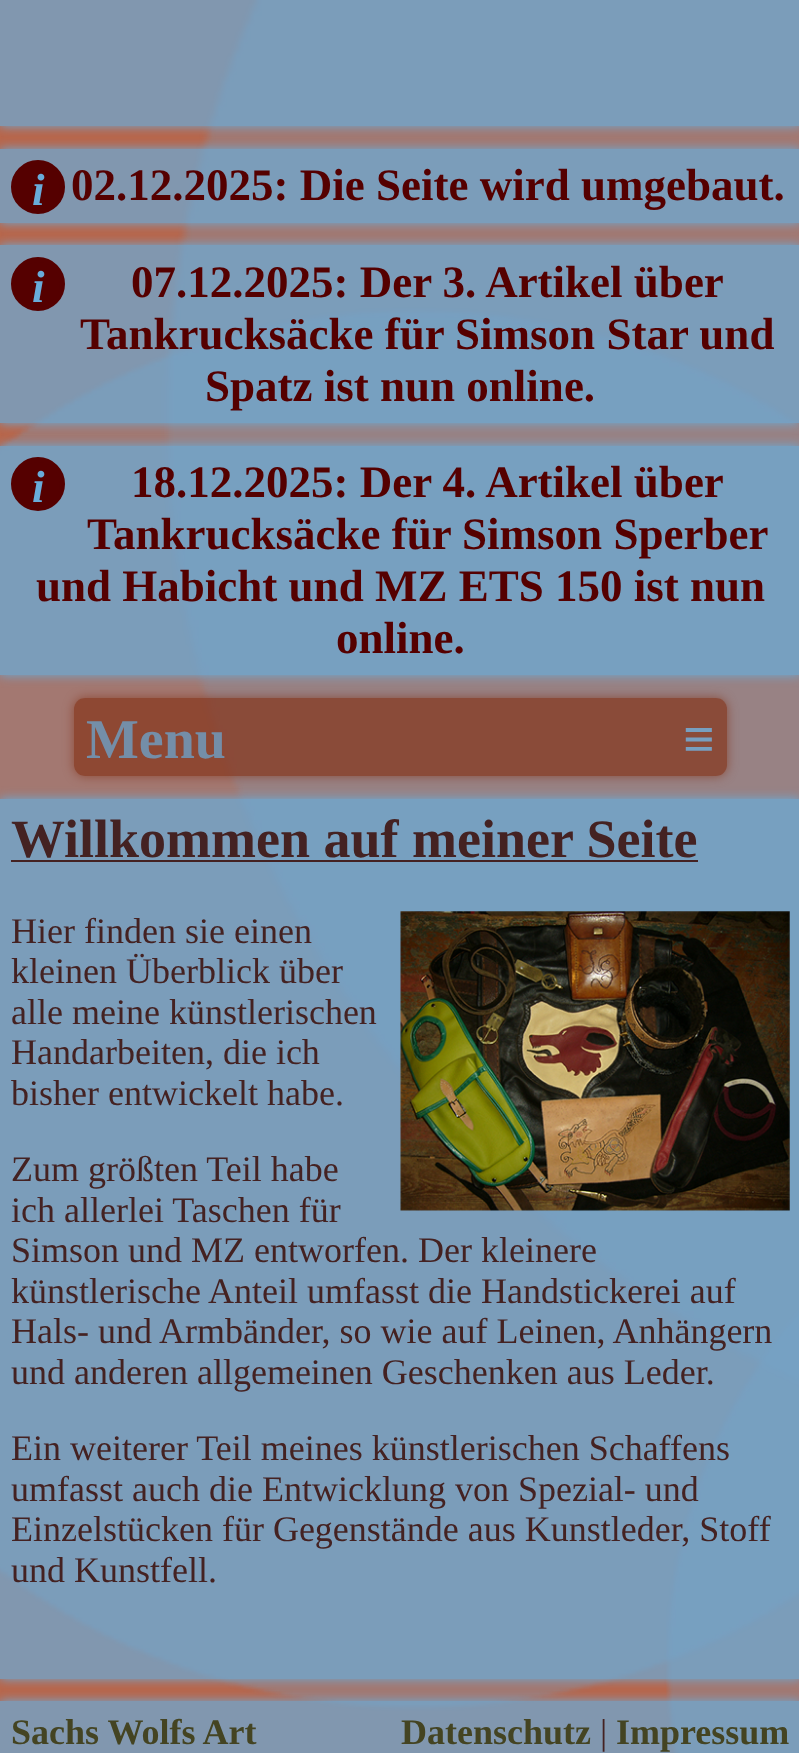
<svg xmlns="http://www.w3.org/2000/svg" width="799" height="1753">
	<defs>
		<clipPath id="clip1"><rect x="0" y="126" width="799" height="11" /></clipPath>
		<clipPath id="clip2"><path d="M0 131H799V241H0ZM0 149H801V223H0Z" clip-rule="evenodd" /></clipPath>
		<clipPath id="clip3"><path d="M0 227H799V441H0ZM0 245H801V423H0Z" clip-rule="evenodd" /></clipPath>
		<clipPath id="clip4"><path d="M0 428H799V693H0ZM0 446H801V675H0Z" clip-rule="evenodd" /></clipPath>
		<clipPath id="clip5"><path d="M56 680H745V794H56ZM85 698H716C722 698 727 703 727 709V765C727 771 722 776 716 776H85C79 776 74 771 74 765V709C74 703 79 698 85 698Z" clip-rule="evenodd" /></clipPath>
		<clipPath id="clip6"><path d="M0 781H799V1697H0ZM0 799H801V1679H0Z" clip-rule="evenodd" /></clipPath>
		<clipPath id="clip7"><rect x="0" y="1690" width="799" height="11" /></clipPath>
	</defs>
	<rect width="100%" height="100%" fill="#B8664B" />
	<image x="0" y="0" width="799" height="1753" href="assets/img1.png" />
	<g clip-path="url(#clip1)">
		<rect x="0" y="0" width="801" height="126" fill="#69ACDA" filter="blur(5.5px)" />
	</g>
	<rect x="0" y="0" width="799" height="126" fill="#69ACDA" fill-opacity="0.7" />
	<g clip-path="url(#clip2)">
		<rect x="0" y="149" width="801" height="74" fill="#69ACDA" filter="blur(5.5px)" />
	</g>
	<rect x="0" y="149" width="799" height="74" fill="#69ACDA" fill-opacity="0.7" />
	<circle cx="38" cy="187" r="24.5" fill="#550000" stroke="#550000" stroke-width="5" />
	<text x="32" y="205" font-family="Liberation Serif" font-size="45" font-weight="700" font-style="italic" fill="#69ACDA">i</text>
	<text x="71" y="200" font-family="Liberation Serif" font-size="45" font-weight="700" fill="#550000">02.12.2025: Die Seite wird umgebaut.</text>
	<g clip-path="url(#clip3)">
		<rect x="0" y="245" width="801" height="178" fill="#69ACDA" filter="blur(5.5px)" />
	</g>
	<rect x="0" y="245" width="799" height="178" fill="#69ACDA" fill-opacity="0.7" />
	<circle cx="38" cy="284" r="24.5" fill="#550000" stroke="#550000" stroke-width="5" />
	<text x="32" y="302" font-family="Liberation Serif" font-size="45" font-weight="700" font-style="italic" fill="#69ACDA">i</text>
	<g font-family="Liberation Serif" font-size="45" font-weight="700" fill="#550000">
		<text x="131" y="297">07.12.2025: Der 3. Artikel über</text>
		<text x="80" y="349">Tankrucksäcke für Simson Star und</text>
		<text x="205" y="401">Spatz ist nun online.</text>
	</g>
	<g clip-path="url(#clip4)">
		<rect x="0" y="446" width="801" height="229" fill="#69ACDA" filter="blur(5.5px)" />
	</g>
	<rect x="0" y="446" width="799" height="229" fill="#69ACDA" fill-opacity="0.7" />
	<circle cx="38" cy="484" r="24.5" fill="#550000" stroke="#550000" stroke-width="5" />
	<text x="32" y="502" font-family="Liberation Serif" font-size="45" font-weight="700" font-style="italic" fill="#69ACDA">i</text>
	<g font-family="Liberation Serif" font-size="45" font-weight="700" fill="#550000">
		<text x="131" y="497">18.12.2025: Der 4. Artikel über</text>
		<text x="87" y="549">Tankrucksäcke für Simson Sperber</text>
		<text x="36" y="601">und Habicht und MZ ETS 150 ist nun</text>
		<text x="336" y="653">online.</text>
	</g>
	<g clip-path="url(#clip5)">
		<rect x="74" y="698" width="653" height="78" rx="11" fill="#853319" fill-opacity="0.7" filter="blur(5.5px)" />
	</g>
	<rect x="74" y="698" width="653" height="78" rx="11" fill="#853319" fill-opacity="0.7" />
	<text x="86" y="758" font-family="Liberation Serif" font-size="56" font-weight="700" fill="#748EA8">Menu</text>
	<text x="683" y="758" font-family="Liberation Serif" font-size="56" font-weight="700" fill="#779FC0">≡</text>
	<g clip-path="url(#clip6)">
		<rect x="0" y="799" width="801" height="880" fill="#69ACDA" filter="blur(5.5px)" />
	</g>
	<rect x="0" y="799" width="799" height="880" fill="#69ACDA" fill-opacity="0.7" />
	<text x="11" y="857" font-family="Liberation Serif" font-size="54" font-weight="700" fill="#442222">Willkommen auf meiner Seite</text>
	<rect x="11" y="860" width="687" height="2" fill="#442222" />
	<text x="11" y="943" font-family="Liberation Serif" font-size="36" fill="#442222">Hier finden sie einen</text>
	<image x="400" y="911" width="390" height="300" href="assets/img2.png" />
	<g font-family="Liberation Serif" font-size="36" fill="#442222">
		<text x="11" y="983">kleinen Überblick über</text>
		<text x="11" y="1024">alle meine künstlerischen</text>
		<text x="11" y="1064">Handarbeiten, die ich</text>
		<text x="11" y="1105">bisher entwickelt habe.</text>
		<text x="11" y="1181">Zum größten Teil habe</text>
		<text x="11" y="1222">ich allerlei Taschen für</text>
		<text x="11" y="1262">Simson und MZ entworfen. Der kleinere</text>
		<text x="11" y="1303">künstlerische Anteil umfasst die Handstickerei auf</text>
		<text x="11" y="1343">Hals- und Armbänder, so wie auf Leinen, Anhängern</text>
		<text x="11" y="1384">und anderen allgemeinen Geschenken aus Leder.</text>
		<text x="11" y="1460">Ein weiterer Teil meines künstlerischen Schaffens</text>
		<text x="11" y="1501">umfasst auch die Entwicklung von Spezial- und</text>
		<text x="11" y="1541">Einzelstücken für Gegenstände aus Kunstleder, Stoff</text>
		<text x="11" y="1582">und Kunstfell.</text>
	</g>
	<g clip-path="url(#clip7)">
		<rect x="0" y="1701" width="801" height="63" fill="#69ACDA" filter="blur(5.5px)" />
	</g>
	<rect x="0" y="1701" width="799" height="52" fill="#69ACDA" fill-opacity="0.7" />
	<g font-family="Liberation Serif" font-size="36" font-weight="700" fill="#444422">
		<text x="11" y="1744">Sachs Wolfs Art</text>
		<text x="401" y="1744">Datenschutz</text>
	</g>
	<text x="600" y="1744" font-family="Liberation Serif" font-size="36" fill="#442222">|</text>
	<text x="616" y="1744" font-family="Liberation Serif" font-size="36" font-weight="700" fill="#444422">Impressum</text>
</svg>
